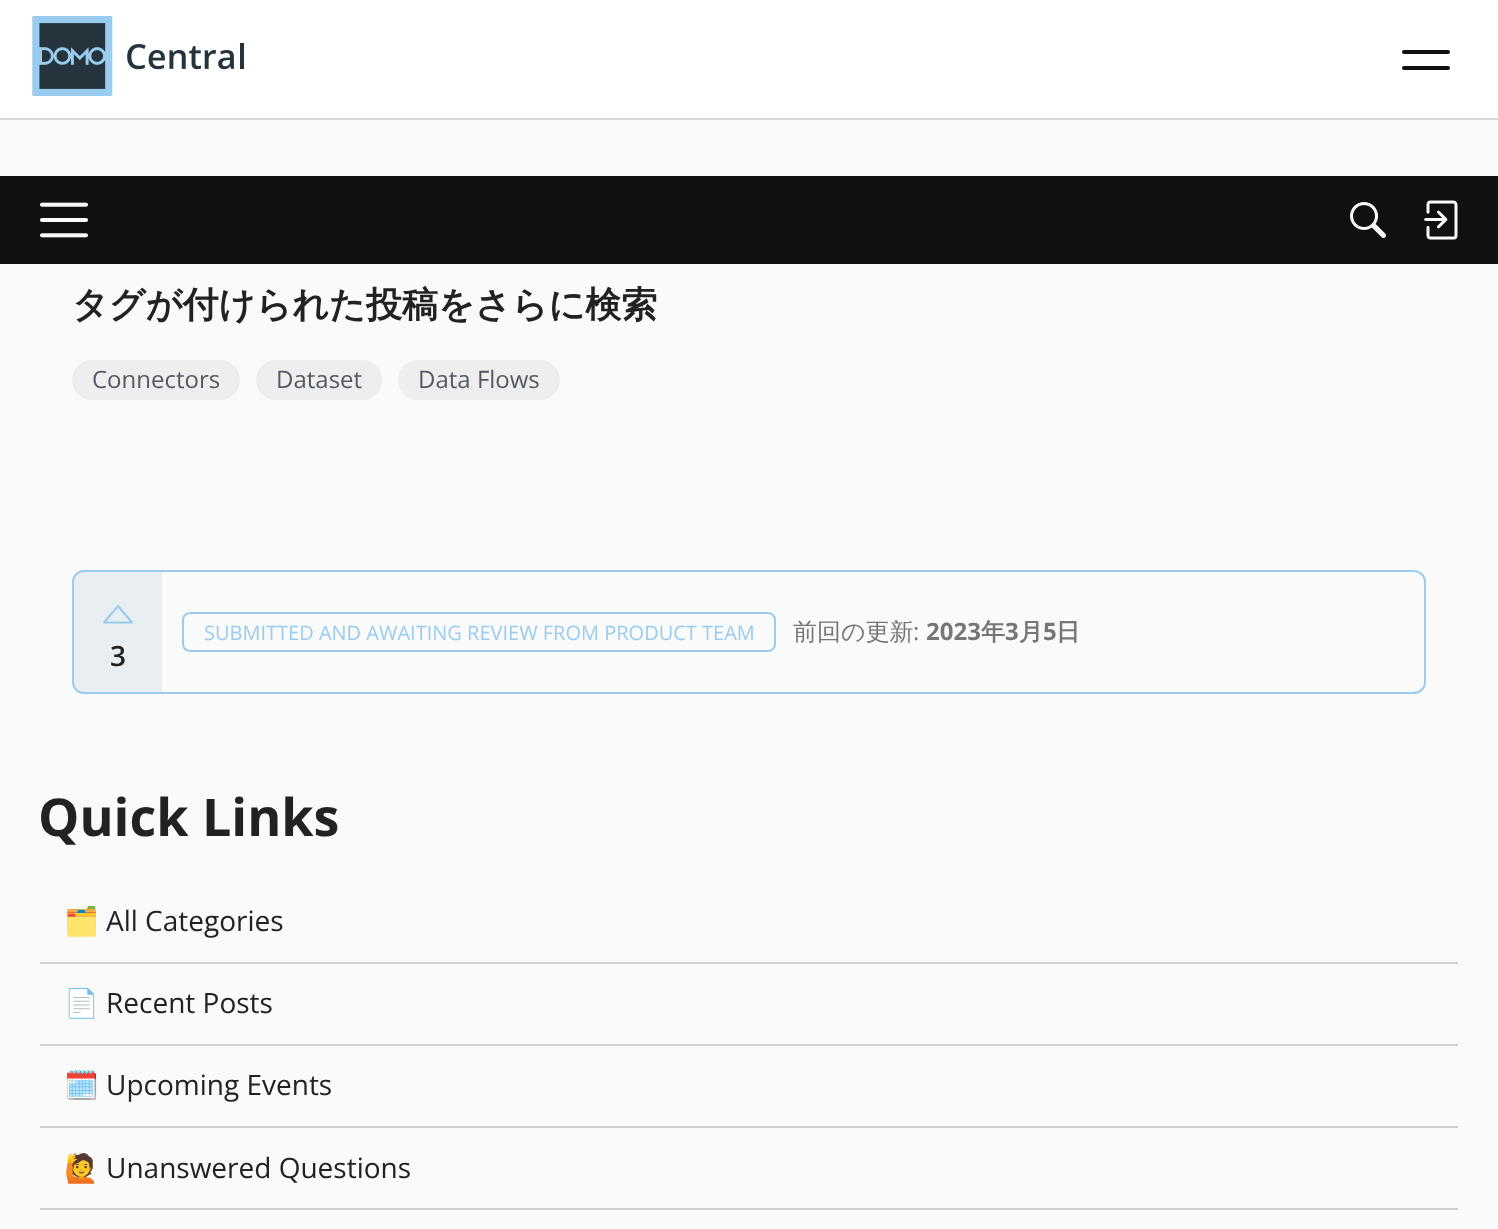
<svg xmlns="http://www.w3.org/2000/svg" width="1498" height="1229">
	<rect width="100%" height="100%" fill="#FAFAFA" />
	<rect x="0" y="0" width="1498" height="118" fill="#FFFFFF" />
	<rect x="0" y="118" width="1498" height="2" fill="#D9D9D9" />
	<image x="32" y="16" width="212" height="80" href="assets/img1.png" />
	<rect x="1402" y="50" width="48" height="4" rx="2" fill="#111111" />
	<rect x="1402" y="66" width="48" height="4" rx="2" fill="#111111" />
	<rect x="0" y="176" width="1498" height="88" fill="#111111" />
	<image x="40" y="202" width="48" height="36" href="assets/img2.png" />
	<image x="1350" y="202" width="36" height="36" href="assets/img3.png" />
	<image x="1424" y="200" width="34" height="40" href="assets/img4.png" />
	<text x="72" y="317" font-family="WenQuanYi Zen Hei" font-size="36" font-weight="700" fill="#222222">タグが付けられた投稿をさらに検索</text>
	<rect x="73" y="361" width="166" height="38" rx="19" fill="#EEEEEF" stroke="#EEEEEF" stroke-width="2" />
	<text x="92" y="388" font-family="Open Sans" font-size="24" fill="#555A62">Connectors</text>
	<rect x="257" y="361" width="124" height="38" rx="19" fill="#EEEEEF" stroke="#EEEEEF" stroke-width="2" />
	<text x="276" y="388" font-family="Open Sans" font-size="24" fill="#555A62">Dataset</text>
	<rect x="399" y="361" width="160" height="38" rx="19" fill="#EEEEEF" stroke="#EEEEEF" stroke-width="2" />
	<text x="418" y="388" font-family="Open Sans" font-size="24" fill="#555A62">Data Flows</text>
	<rect x="73" y="571" width="1352" height="122" rx="11" fill="none" stroke="#99CCEE" stroke-width="2" />
	<rect x="183" y="613" width="592" height="38" rx="7" fill="none" stroke="#99CCEE" stroke-width="2" />
	<text x="204" y="640" font-family="Open Sans" font-size="20" fill="#99CCEE">SUBMITTED AND AWAITING REVIEW FROM PRODUCT TEAM</text>
	<text x="793" y="640" font-family="WenQuanYi Zen Hei" font-size="24" font-weight="500" fill="#767676">前回の更新</text>
	<text x="913" y="640" font-family="Open Sans" font-size="24" fill="#767676">:</text>
	<text x="926" y="640" font-family="Open Sans" font-size="24" font-weight="700" fill="#767676">2023</text>
	<text x="981" y="640" font-family="WenQuanYi Zen Hei" font-size="24" font-weight="700" fill="#767676">年</text>
	<text x="1005" y="640" font-family="Open Sans" font-size="24" font-weight="700" fill="#767676">3</text>
	<text x="1019" y="640" font-family="WenQuanYi Zen Hei" font-size="24" font-weight="700" fill="#767676">月</text>
	<text x="1043" y="640" font-family="Open Sans" font-size="24" font-weight="700" fill="#767676">5</text>
	<text x="1056" y="640" font-family="WenQuanYi Zen Hei" font-size="24" font-weight="700" fill="#767676">日</text>
	<path d="M86 572H162V692H86C79.5 692 74 686.5 74 680V584C74 577.5 79.5 572 86 572Z" fill="#276296" fill-opacity="0.08" />
	<path d="M104 622.5L118 606L132 622.5Z" fill="none" stroke="#99CCEE" stroke-width="2" stroke-linejoin="round" />
	<text x="110" y="666" font-family="Open Sans" font-size="28" font-weight="600" fill="#222222">3</text>
	<text x="38" y="836" font-family="Open Sans" font-size="52" font-weight="700" fill="#222222">Quick Links</text>
	<rect x="40" y="962" width="1418" height="2" fill="#CFCFCF" />
	<text x="64" y="931" font-family="Noto Color Emoji" font-size="28" fill="#222222">🗂️</text>
	<text x="106" y="931" font-family="Open Sans" font-size="28" fill="#222222">All Categories</text>
	<rect x="40" y="1044" width="1418" height="2" fill="#CFCFCF" />
	<text x="64" y="1013" font-family="Noto Color Emoji" font-size="28" fill="#222222">📄</text>
	<text x="106" y="1013" font-family="Open Sans" font-size="28" fill="#222222">Recent Posts</text>
	<rect x="40" y="1126" width="1418" height="2" fill="#CFCFCF" />
	<text x="64" y="1095" font-family="Noto Color Emoji" font-size="28" fill="#222222">🗓️</text>
	<text x="106" y="1095" font-family="Open Sans" font-size="28" fill="#222222">Upcoming Events</text>
	<rect x="40" y="1208" width="1418" height="2" fill="#CFCFCF" />
	<text x="64" y="1178" font-family="Noto Color Emoji" font-size="28" fill="#222222">🙋</text>
	<text x="106" y="1178" font-family="Open Sans" font-size="28" fill="#222222">Unanswered Questions</text>
</svg>
